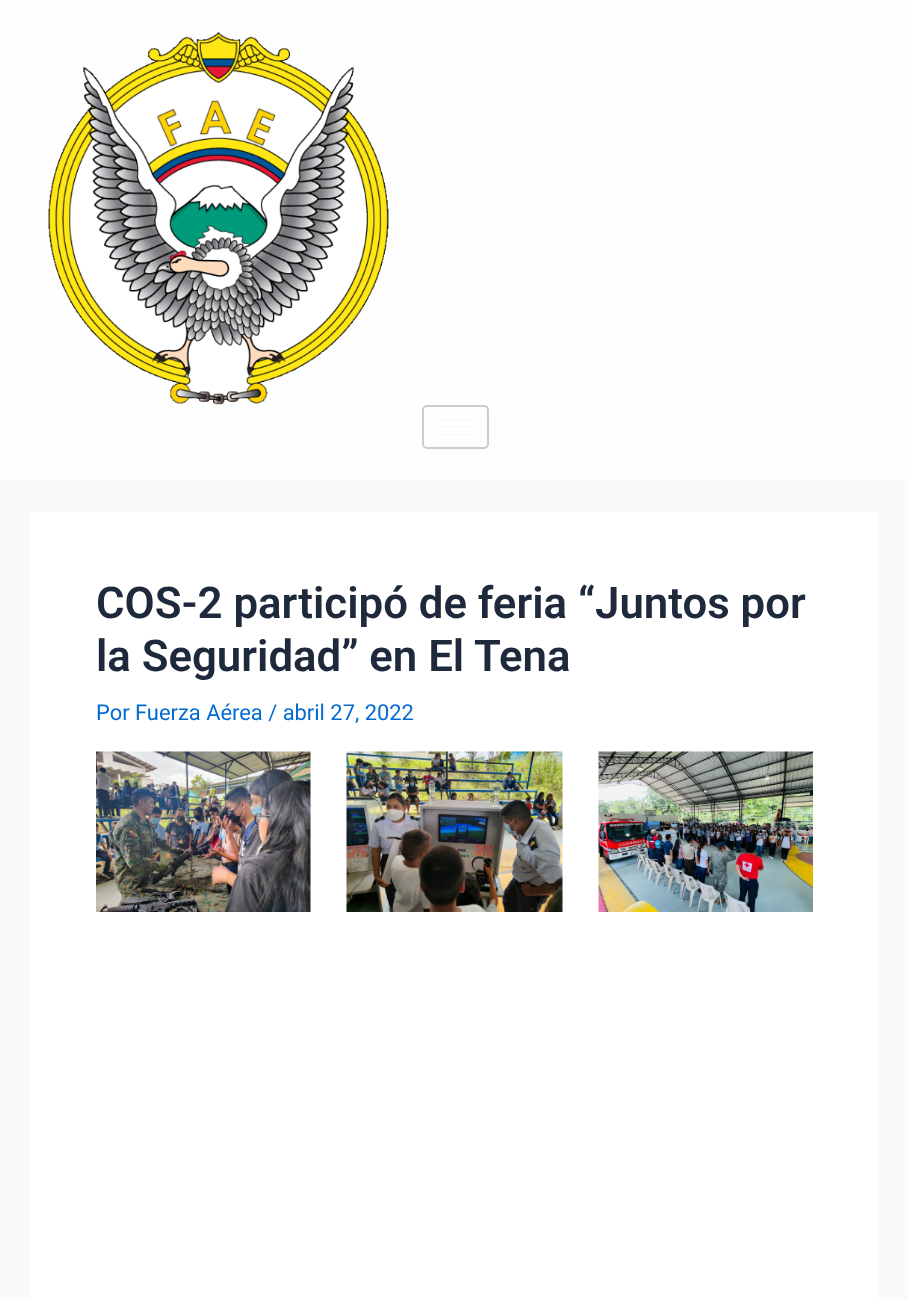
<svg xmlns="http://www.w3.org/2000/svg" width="908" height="1300">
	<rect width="100%" height="100%" fill="#F9FAFB" />
	<rect x="0" y="0" width="908" height="479" fill="#FEFEFE" />
	<image x="48" y="31" width="341" height="374" href="assets/img1.png" />
	<rect x="423" y="406" width="65" height="42" rx="4" fill="none" stroke="#CBCBCB" stroke-width="2" />
	<rect x="435" y="419" width="41" height="2" fill="#FAFAFA" />
	<rect x="435" y="426" width="41" height="2" fill="#FAFAFA" />
	<rect x="435" y="434" width="41" height="2" fill="#FAFAFA" />
	<rect x="30" y="512" width="849" height="788" fill="#FFFFFF" />
	<g font-family="Roboto" font-size="43.75" font-weight="600" fill="#1E293B">
		<text x="96" y="618">COS-2 participó de feria “Juntos por</text>
		<text x="96" y="671">la Seguridad” en El Tena</text>
	</g>
	<text x="96" y="720" font-family="Roboto" font-size="21.9" fill="#046BD2">Por Fuerza Aérea / abril 27, 2022</text>
	<image x="96" y="751" width="215" height="161" href="assets/img2.png" />
	<image x="346" y="751" width="217" height="161" href="assets/img3.png" />
	<image x="598" y="751" width="215" height="161" href="assets/img4.png" />
</svg>
